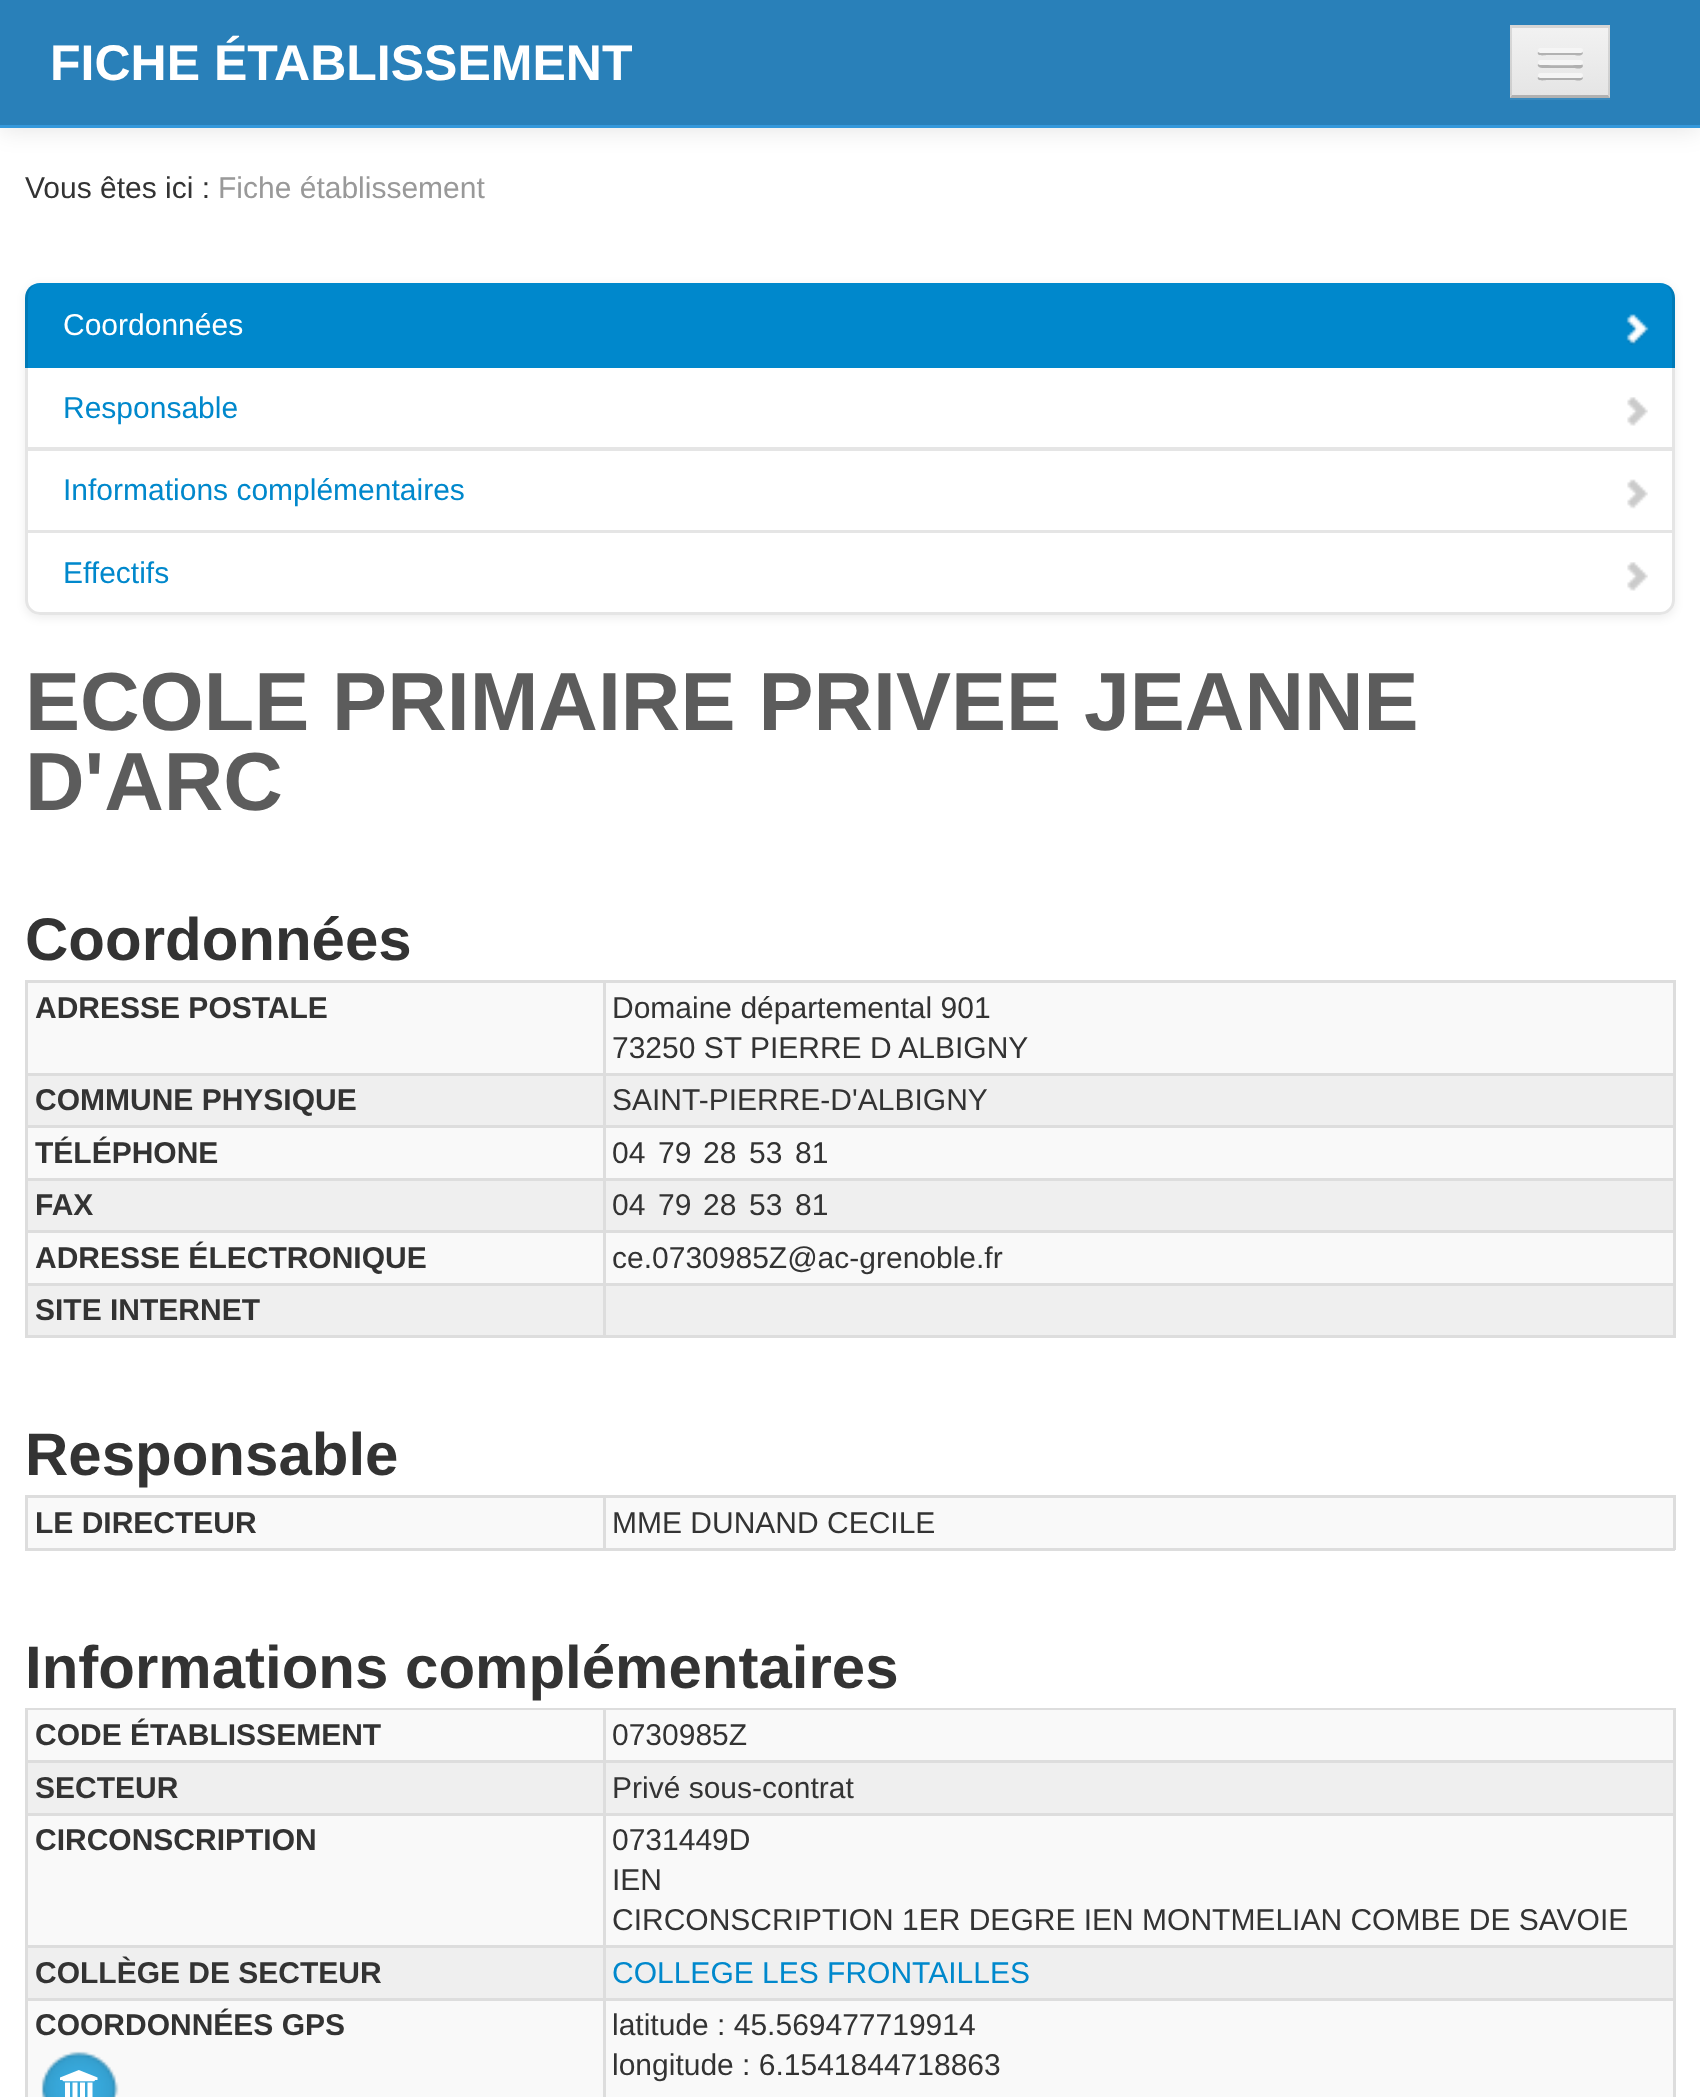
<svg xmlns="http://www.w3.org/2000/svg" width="1700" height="2097">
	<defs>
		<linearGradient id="g1" gradientUnits="userSpaceOnUse" x1="1560" y1="27" x2="1560" y2="95"><stop offset="0" stop-color="#F2F2F2" /><stop offset="1" stop-color="#E5E5E5" /></linearGradient>
	</defs>
	<rect width="100%" height="100%" fill="#FFFFFF" />
	<rect x="0" y="3" width="1700" height="127" fill="#000000" fill-opacity="0.1" filter="blur(12.5px)" />
	<rect x="0" y="0" width="1700" height="125" fill="#2980B9" />
	<rect x="0" y="125" width="1700" height="3" fill="#3498DB" />
	<text x="50" y="80" font-family="Liberation Sans" font-size="50" font-weight="700" fill="#FFFFFF">FICHE ÉTABLISSEMENT</text>
	<rect x="1510" y="98" width="100" height="2" fill="#398ABE" />
	<rect x="1510" y="25" width="100" height="73" fill="#EDEDED" />
	<rect x="1510" y="28" width="100" height="67" fill="url(#g1)" />
	<path d="M1510 25H1610L1608 28H1512Z" fill="#D5D5D5" />
	<path d="M1610 25V98L1608 95V28Z" fill="#000000" fill-opacity="0.1" />
	<path d="M1610 98H1510L1512 95H1608Z" fill="#000000" fill-opacity="0.25" />
	<path d="M1510 98V25L1512 28V95Z" fill="#000000" fill-opacity="0.1" />
	<path d="M1538 52C1536 57 1546 55 1547 55H1574C1575 55 1582 57 1583 53L1582 51L1580 52H1540Z" fill="#B2B2B2" />
	<rect x="1538" y="48" width="45" height="5" rx="2.5" fill="#F5F5F5" />
	<path d="M1538 64C1536 69 1547 68 1547 68H1574C1575 68 1582 70 1583 66L1582 64L1580 65C1577 65 1540 66 1538 64Z" fill="#B0B0B0" />
	<rect x="1538" y="60" width="45" height="5" rx="2.5" fill="#F5F5F5" />
	<path d="M1538 77C1536 82 1546 80 1547 80H1574C1575 80 1582 82 1583 78L1582 76L1580 77H1540Z" fill="#AEAEAE" />
	<rect x="1538" y="73" width="45" height="5" rx="2.5" fill="#F5F5F5" />
	<text x="25" y="198" font-family="Liberation Sans" font-size="30" fill="#333333">Vous êtes ici :</text>
	<text x="218" y="198" font-family="Liberation Sans" font-size="30" fill="#999999">Fiche établissement</text>
	<rect x="25" y="285" width="1650" height="333" rx="15" fill="#000000" fill-opacity="0.07" filter="blur(5px)" />
	<rect x="25" y="283" width="1650" height="332" rx="15" fill="#FFFFFF" />
	<rect x="26.5" y="366.5" width="1647" height="82" fill="none" stroke="#E5E5E5" stroke-width="3" />
	<path d="M40 283H1660C1668.5 283 1675 289.5 1675 298V368H25V298C25 289.5 31.5 283 40 283Z" fill="#0088CC" />
	<path d="M1672 368H1675V298C1675 291 1671 286 1664 284C1669 286 1672 292 1672 298Z" fill="#000000" fill-opacity="0.1" />
	<path d="M36 284C29 286 25 291 25 298V368H28V298C28 292 31 286 36 284Z" fill="#000000" fill-opacity="0.1" />
	<text x="63" y="335" font-family="Liberation Sans" font-size="30" fill="#FFFFFF">Coordonnées</text>
	<image x="1626" y="314" width="23" height="31" href="assets/img1.png" />
	<text x="63" y="418" font-family="Liberation Sans" font-size="30" fill="#0088CC">Responsable</text>
	<image x="1627" y="397" width="21" height="29" href="assets/img2.png" />
	<rect x="26.5" y="449.5" width="1647" height="82" fill="none" stroke="#E5E5E5" stroke-width="3" />
	<text x="63" y="500" font-family="Liberation Sans" font-size="30" fill="#0088CC">Informations complémentaires</text>
	<image x="1627" y="479" width="21" height="30" href="assets/img3.png" />
	<path d="M26.5 531.5H1673.5V600C1673.5 607.5 1667.5 613.5 1660 613.5H40C32.5 613.5 26.5 607.5 26.5 600Z" fill="none" stroke="#E5E5E5" stroke-width="3" />
	<text x="63" y="583" font-family="Liberation Sans" font-size="30" fill="#0088CC">Effectifs</text>
	<image x="1627" y="562" width="21" height="29" href="assets/img2.png" />
	<g font-family="Liberation Sans" font-size="82.5" font-weight="700" fill="#5C5C5C">
		<text x="25" y="730">ECOLE PRIMAIRE PRIVEE JEANNE</text>
		<text x="25" y="810">D'ARC</text>
	</g>
	<text x="25" y="960" font-family="Liberation Sans" font-size="60" font-weight="700" fill="#333333">Coordonnées</text>
	<rect x="25" y="980" width="1650" height="3" fill="#DDDDDD" />
	<rect x="1673" y="980" width="3" height="358" fill="#DDDDDD" />
	<rect x="25" y="1335" width="1650" height="3" fill="#DDDDDD" />
	<rect x="28" y="983" width="575" height="90" fill="#F9F9F9" />
	<rect x="25" y="983" width="3" height="90" fill="#DDDDDD" />
	<text x="35" y="1018" font-family="Liberation Sans" font-size="30" font-weight="700" fill="#333333">ADRESSE POSTALE</text>
	<rect x="606" y="983" width="1067" height="90" fill="#F9F9F9" />
	<rect x="603" y="983" width="3" height="90" fill="#DDDDDD" />
	<g font-family="Liberation Sans" font-size="30" fill="#333333">
		<text x="612" y="1018">Domaine départemental 901</text>
		<text x="612" y="1058">73250 ST PIERRE D ALBIGNY</text>
	</g>
	<rect x="28" y="1076" width="575" height="49" fill="#EFEFEF" />
	<rect x="25" y="1073" width="1648" height="3" fill="#DDDDDD" />
	<rect x="25" y="1073" width="3" height="52" fill="#DDDDDD" />
	<text x="35" y="1110" font-family="Liberation Sans" font-size="30" font-weight="700" fill="#333333">COMMUNE PHYSIQUE</text>
	<rect x="606" y="1076" width="1067" height="49" fill="#EFEFEF" />
	<rect x="603" y="1073" width="3" height="52" fill="#DDDDDD" />
	<text x="612" y="1110" font-family="Liberation Sans" font-size="30" fill="#333333">SAINT-PIERRE-D'ALBIGNY</text>
	<rect x="28" y="1128" width="575" height="50" fill="#F9F9F9" />
	<rect x="25" y="1125" width="1648" height="3" fill="#DDDDDD" />
	<rect x="25" y="1125" width="3" height="53" fill="#DDDDDD" />
	<text x="35" y="1163" font-family="Liberation Sans" font-size="30" font-weight="700" fill="#333333">TÉLÉPHONE</text>
	<rect x="606" y="1128" width="1067" height="50" fill="#F9F9F9" />
	<rect x="603" y="1125" width="3" height="53" fill="#DDDDDD" />
	<g font-family="Liberation Sans" font-size="30" fill="#333333">
		<text x="612" y="1163">04</text>
		<text x="658" y="1163">79</text>
		<text x="703" y="1163">28</text>
		<text x="749" y="1163">53</text>
		<text x="795" y="1163">81</text>
	</g>
	<rect x="28" y="1181" width="575" height="49" fill="#EFEFEF" />
	<rect x="25" y="1178" width="1648" height="3" fill="#DDDDDD" />
	<rect x="25" y="1178" width="3" height="52" fill="#DDDDDD" />
	<text x="35" y="1215" font-family="Liberation Sans" font-size="30" font-weight="700" fill="#333333">FAX</text>
	<rect x="606" y="1181" width="1067" height="49" fill="#EFEFEF" />
	<rect x="603" y="1178" width="3" height="52" fill="#DDDDDD" />
	<g font-family="Liberation Sans" font-size="30" fill="#333333">
		<text x="612" y="1215">04</text>
		<text x="658" y="1215">79</text>
		<text x="703" y="1215">28</text>
		<text x="749" y="1215">53</text>
		<text x="795" y="1215">81</text>
	</g>
	<rect x="28" y="1233" width="575" height="50" fill="#F9F9F9" />
	<rect x="25" y="1230" width="1648" height="3" fill="#DDDDDD" />
	<rect x="25" y="1230" width="3" height="53" fill="#DDDDDD" />
	<text x="35" y="1268" font-family="Liberation Sans" font-size="30" font-weight="700" fill="#333333">ADRESSE ÉLECTRONIQUE</text>
	<rect x="606" y="1233" width="1067" height="50" fill="#F9F9F9" />
	<rect x="603" y="1230" width="3" height="53" fill="#DDDDDD" />
	<text x="612" y="1268" font-family="Liberation Sans" font-size="30" fill="#333333">ce.0730985Z@ac-grenoble.fr</text>
	<rect x="28" y="1286" width="575" height="49" fill="#EFEFEF" />
	<rect x="25" y="1283" width="1648" height="3" fill="#DDDDDD" />
	<rect x="25" y="1283" width="3" height="52" fill="#DDDDDD" />
	<text x="35" y="1320" font-family="Liberation Sans" font-size="30" font-weight="700" fill="#333333">SITE INTERNET</text>
	<rect x="606" y="1286" width="1067" height="49" fill="#EFEFEF" />
	<rect x="603" y="1283" width="3" height="52" fill="#DDDDDD" />
	<text x="25" y="1475" font-family="Liberation Sans" font-size="60" font-weight="700" fill="#333333">Responsable</text>
	<rect x="25" y="1495" width="1650" height="3" fill="#DDDDDD" />
	<rect x="1673" y="1495" width="3" height="55" fill="#DDDDDD" />
	<rect x="25" y="1548" width="1650" height="3" fill="#DDDDDD" />
	<rect x="28" y="1498" width="575" height="50" fill="#F9F9F9" />
	<rect x="25" y="1498" width="3" height="50" fill="#DDDDDD" />
	<text x="35" y="1533" font-family="Liberation Sans" font-size="30" font-weight="700" fill="#333333">LE DIRECTEUR</text>
	<rect x="606" y="1498" width="1067" height="50" fill="#F9F9F9" />
	<rect x="603" y="1498" width="3" height="50" fill="#DDDDDD" />
	<text x="612" y="1533" font-family="Liberation Sans" font-size="30" fill="#333333">MME DUNAND CECILE</text>
	<text x="25" y="1688" font-family="Liberation Sans" font-size="60" font-weight="700" fill="#333333">Informations complémentaires</text>
	<rect x="25" y="1708" width="1650" height="2" fill="#DDDDDD" />
	<rect x="1673" y="1708" width="3" height="389" fill="#DDDDDD" />
	<rect x="28" y="1710" width="575" height="50" fill="#F9F9F9" />
	<rect x="25" y="1710" width="3" height="50" fill="#DDDDDD" />
	<text x="35" y="1745" font-family="Liberation Sans" font-size="30" font-weight="700" fill="#333333">CODE ÉTABLISSEMENT</text>
	<rect x="606" y="1710" width="1067" height="50" fill="#F9F9F9" />
	<rect x="603" y="1710" width="3" height="50" fill="#DDDDDD" />
	<text x="612" y="1745" font-family="Liberation Sans" font-size="30" fill="#333333">0730985Z</text>
	<rect x="28" y="1763" width="575" height="50" fill="#EFEFEF" />
	<rect x="25" y="1760" width="1648" height="3" fill="#DDDDDD" />
	<rect x="25" y="1760" width="3" height="53" fill="#DDDDDD" />
	<text x="35" y="1798" font-family="Liberation Sans" font-size="30" font-weight="700" fill="#333333">SECTEUR</text>
	<rect x="606" y="1763" width="1067" height="50" fill="#EFEFEF" />
	<rect x="603" y="1760" width="3" height="53" fill="#DDDDDD" />
	<text x="612" y="1798" font-family="Liberation Sans" font-size="30" fill="#333333">Privé sous-contrat</text>
	<rect x="28" y="1816" width="575" height="129" fill="#F9F9F9" />
	<rect x="25" y="1813" width="1648" height="3" fill="#DDDDDD" />
	<rect x="25" y="1813" width="3" height="132" fill="#DDDDDD" />
	<text x="35" y="1850" font-family="Liberation Sans" font-size="30" font-weight="700" fill="#333333">CIRCONSCRIPTION</text>
	<rect x="606" y="1816" width="1067" height="129" fill="#F9F9F9" />
	<rect x="603" y="1813" width="3" height="132" fill="#DDDDDD" />
	<g font-family="Liberation Sans" font-size="30" fill="#333333">
		<text x="612" y="1850">0731449D</text>
		<text x="612" y="1890">IEN</text>
		<text x="612" y="1930">CIRCONSCRIPTION 1ER DEGRE IEN MONTMELIAN COMBE DE SAVOIE</text>
	</g>
	<rect x="28" y="1948" width="575" height="50" fill="#EFEFEF" />
	<rect x="25" y="1945" width="1648" height="3" fill="#DDDDDD" />
	<rect x="25" y="1945" width="3" height="53" fill="#DDDDDD" />
	<text x="35" y="1983" font-family="Liberation Sans" font-size="30" font-weight="700" fill="#333333">COLLÈGE DE SECTEUR</text>
	<rect x="606" y="1948" width="1067" height="50" fill="#EFEFEF" />
	<rect x="603" y="1945" width="3" height="53" fill="#DDDDDD" />
	<text x="612" y="1983" font-family="Liberation Sans" font-size="30" fill="#0088CC">COLLEGE LES FRONTAILLES</text>
	<rect x="28" y="2001" width="575" height="96" fill="#F9F9F9" />
	<rect x="25" y="1998" width="1648" height="3" fill="#DDDDDD" />
	<rect x="25" y="1998" width="3" height="99" fill="#DDDDDD" />
	<text x="35" y="2035" font-family="Liberation Sans" font-size="30" font-weight="700" fill="#333333">COORDONNÉES GPS</text>
	<image x="41" y="2051" width="78" height="46" href="assets/img4.png" />
	<image x="60" y="2070" width="38" height="27" href="assets/img5.png" />
	<rect x="606" y="2001" width="1067" height="96" fill="#F9F9F9" />
	<rect x="603" y="1998" width="3" height="99" fill="#DDDDDD" />
	<g font-family="Liberation Sans" font-size="30" fill="#333333">
		<text x="612" y="2035">latitude : 45.569477719914</text>
		<text x="612" y="2075">longitude : 6.1541844718863</text>
	</g>
</svg>
